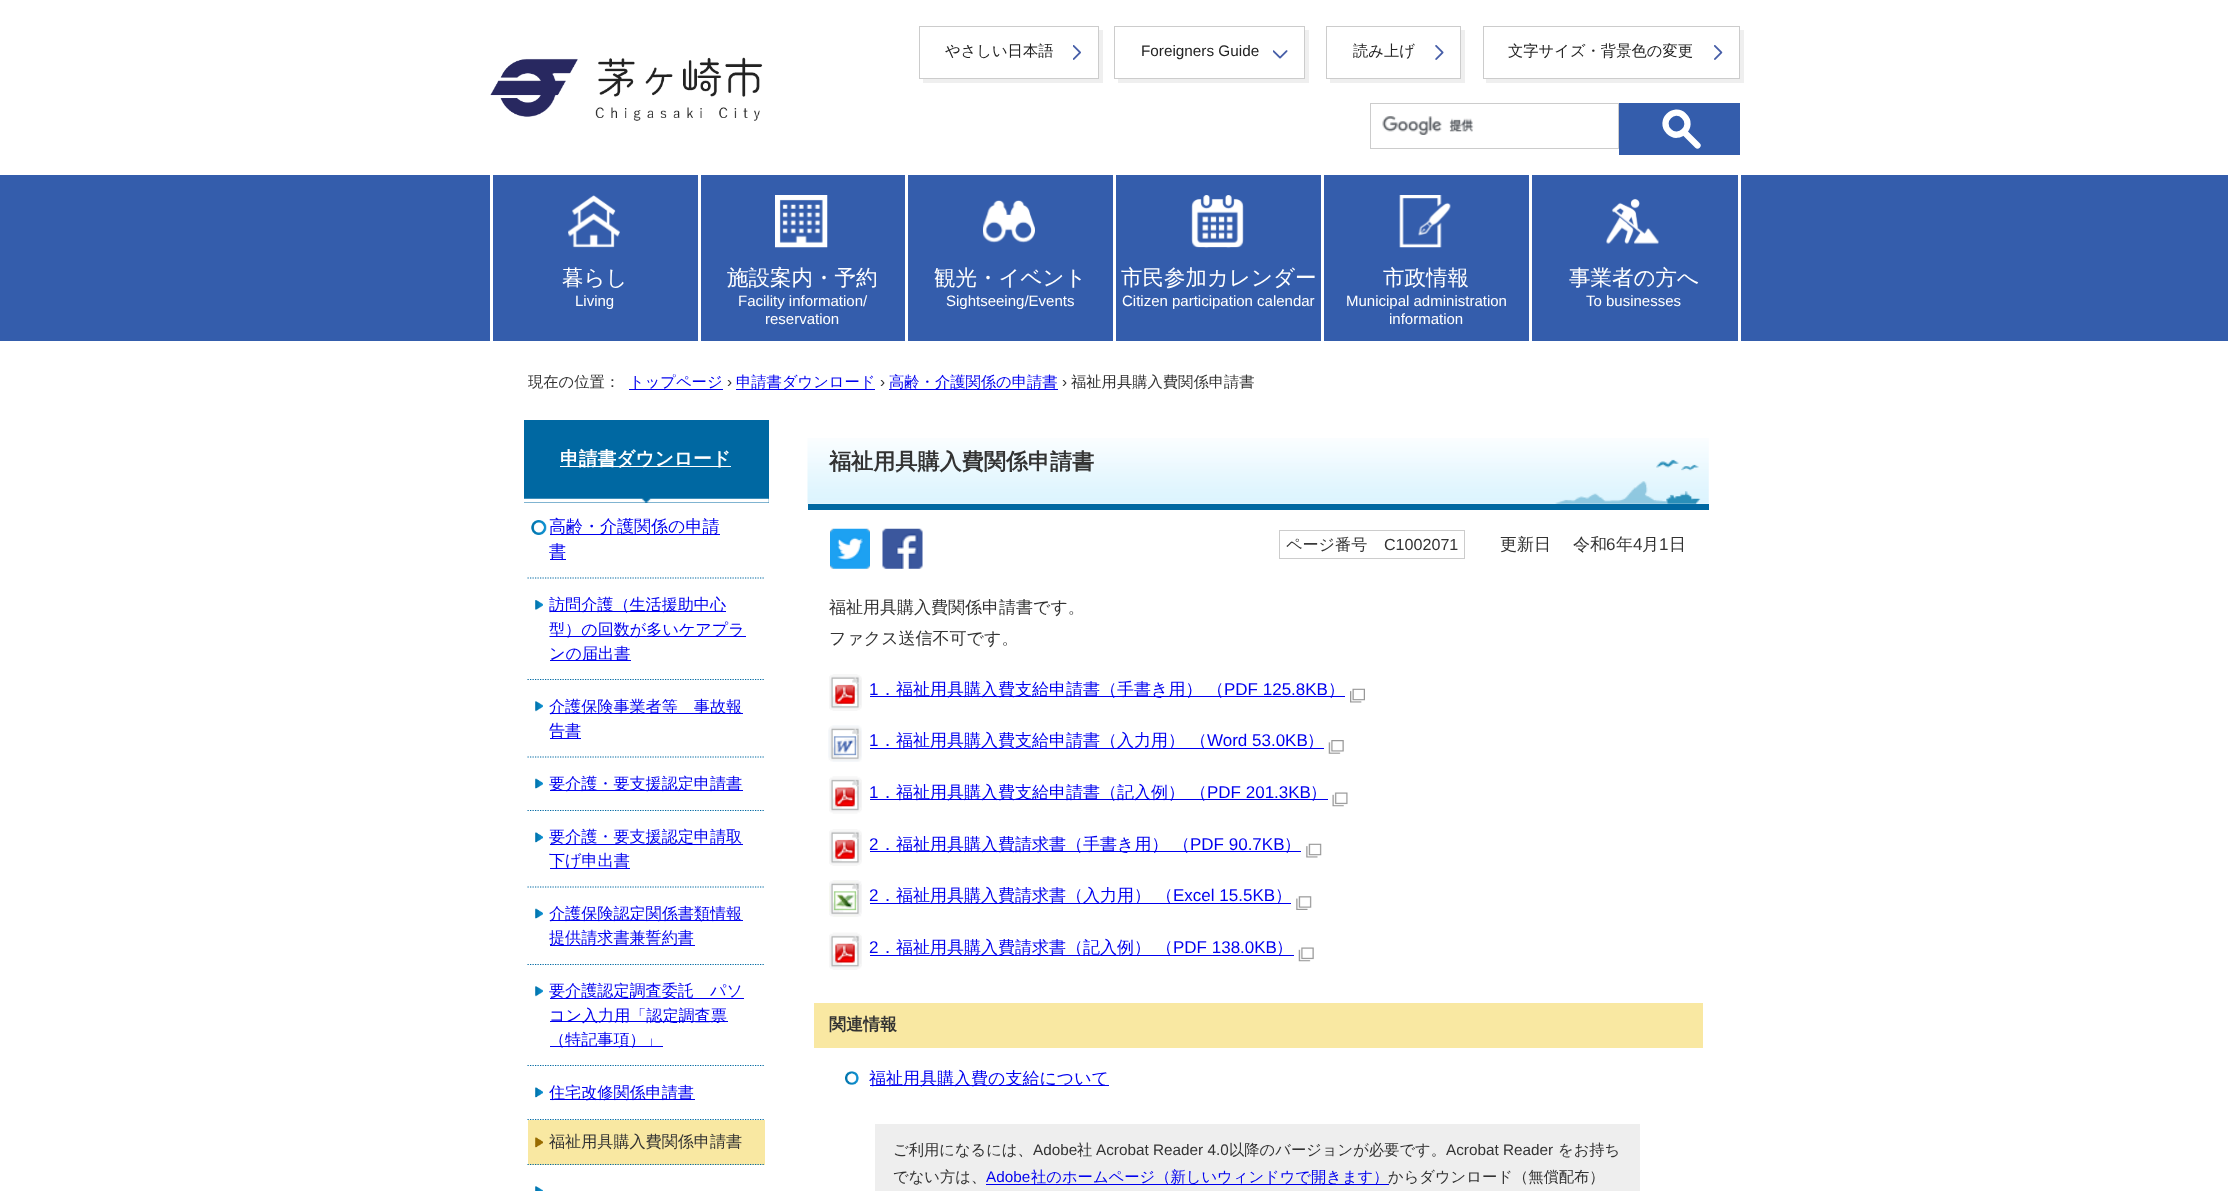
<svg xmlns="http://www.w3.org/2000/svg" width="2228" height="1191">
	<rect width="100%" height="100%" fill="#FFFFFF" />
	<path d="M923 79V83H1103V30H1099V79Z" fill="#EFEFEF" />
	<rect x="919.5" y="26.5" width="179" height="52" fill="none" stroke="#CCCCCC" />
	<text x="945" y="56" font-family="WenQuanYi Zen Hei" font-size="15.3" font-weight="500" fill="#222222">やさしい日本語</text>
	<image x="1073" y="45" width="8" height="15" href="assets/img1.png" />
	<path d="M1118 79V83H1309V30H1305V79Z" fill="#EFEFEF" />
	<rect x="1114.5" y="26.5" width="190" height="52" fill="none" stroke="#CCCCCC" />
	<text x="1141" y="56" font-family="Liberation Sans" font-size="15.3" fill="#222222">Foreigners Guide</text>
	<image x="1273" y="50" width="15" height="9" href="assets/img2.png" />
	<path d="M1330 79V83H1465V30H1461V79Z" fill="#EFEFEF" />
	<rect x="1326.5" y="26.5" width="134" height="52" fill="none" stroke="#CCCCCC" />
	<text x="1353" y="56" font-family="WenQuanYi Zen Hei" font-size="15.3" font-weight="500" fill="#222222">読み上げ</text>
	<image x="1435" y="45" width="9" height="15" href="assets/img3.png" />
	<path d="M1486 79V83H1744V30H1740V79Z" fill="#EFEFEF" />
	<rect x="1483.5" y="26.5" width="256" height="52" fill="none" stroke="#CCCCCC" />
	<text x="1508" y="56" font-family="WenQuanYi Zen Hei" font-size="15.3" font-weight="500" fill="#222222">文字サイズ・背景色の変更</text>
	<image x="1714" y="45" width="9" height="15" href="assets/img4.png" />
	<image x="1382" y="116" width="92" height="19" href="assets/img5.png" />
	<rect x="1370.5" y="103.5" width="248" height="45" fill="none" stroke="#CCCCCC" />
	<rect x="1619" y="103" width="121" height="52" fill="#345DAC" />
	<path d="M1684 116C1694.5 126 1679 141.5 1669 131.5C1658.5 121 1674 106 1684 116Z" fill="none" stroke="#FFFFFF" stroke-width="6.3" />
	<path d="M1685 133L1697.5 145.5" fill="none" stroke="#FFFFFF" stroke-width="6.3" stroke-linecap="round" />
	<image x="490" y="57" width="273" height="64" href="assets/img6.png" />
	<rect x="0" y="175" width="2228" height="166" fill="#345DAC" />
	<rect x="1738" y="175" width="3" height="166" fill="#FFFFFF" />
	<image x="568" y="195" width="52" height="53" href="assets/img7.png" />
	<rect x="490" y="175" width="3" height="166" fill="#FFFFFF" />
	<text x="562" y="285" font-family="WenQuanYi Zen Hei" font-size="21.5" font-weight="500" fill="#FFFFFF">暮らし</text>
	<text x="575" y="306" font-family="Liberation Sans" font-size="15" fill="#FFFFFF">Living</text>
	<image x="775" y="195" width="53" height="53" href="assets/img8.png" />
	<rect x="698" y="175" width="3" height="166" fill="#FFFFFF" />
	<text x="727" y="285" font-family="WenQuanYi Zen Hei" font-size="21.5" font-weight="500" fill="#FFFFFF">施設案内・予約</text>
	<g font-family="Liberation Sans" font-size="15" fill="#FFFFFF">
		<text x="738" y="306">Facility information/</text>
		<text x="765" y="324">reservation</text>
	</g>
	<image x="983" y="200" width="52" height="43" href="assets/img9.png" />
	<rect x="905" y="175" width="3" height="166" fill="#FFFFFF" />
	<text x="934" y="285" font-family="WenQuanYi Zen Hei" font-size="21.5" font-weight="500" fill="#FFFFFF">観光・イベント</text>
	<text x="946" y="306" font-family="Liberation Sans" font-size="15" fill="#FFFFFF">Sightseeing/Events</text>
	<image x="1191" y="195" width="53" height="53" href="assets/img10.png" />
	<rect x="1113" y="175" width="3" height="166" fill="#FFFFFF" />
	<text x="1121" y="285" font-family="WenQuanYi Zen Hei" font-size="21.5" font-weight="500" fill="#FFFFFF">市民参加カレンダー</text>
	<text x="1122" y="306" font-family="Liberation Sans" font-size="15" fill="#FFFFFF">Citizen participation calendar</text>
	<image x="1399" y="195" width="52" height="53" href="assets/img11.png" />
	<rect x="1321" y="175" width="3" height="166" fill="#FFFFFF" />
	<text x="1383" y="285" font-family="WenQuanYi Zen Hei" font-size="21.5" font-weight="500" fill="#FFFFFF">市政情報</text>
	<g font-family="Liberation Sans" font-size="15" fill="#FFFFFF">
		<text x="1346" y="306">Municipal administration</text>
		<text x="1389" y="324">information</text>
	</g>
	<image x="1606" y="198" width="53" height="46" href="assets/img12.png" />
	<rect x="1529" y="175" width="3" height="166" fill="#FFFFFF" />
	<text x="1569" y="285" font-family="WenQuanYi Zen Hei" font-size="21.5" font-weight="500" fill="#FFFFFF">事業者の方へ</text>
	<text x="1586" y="306" font-family="Liberation Sans" font-size="15" fill="#FFFFFF">To businesses</text>
	<text x="528" y="387" font-family="WenQuanYi Zen Hei" font-size="15.3" font-weight="500" fill="#333333">現在の位置：</text>
	<text x="629" y="387" font-family="WenQuanYi Zen Hei" font-size="15.3" font-weight="500" fill="#0000EE">トップページ</text>
	<rect x="629" y="389" width="94" height="1" fill="#0000EE" />
	<text x="727" y="387" font-family="Liberation Sans" font-size="15.3" fill="#333333">›</text>
	<rect x="736" y="389" width="139" height="1" fill="#0000EE" />
	<text x="736" y="387" font-family="WenQuanYi Zen Hei" font-size="15.3" font-weight="500" fill="#0000EE">申請書ダウンロード</text>
	<text x="880" y="387" font-family="Liberation Sans" font-size="15.3" fill="#333333">›</text>
	<rect x="889" y="389" width="169" height="1" fill="#0000EE" />
	<text x="889" y="387" font-family="WenQuanYi Zen Hei" font-size="15.3" font-weight="500" fill="#0000EE">高齢・介護関係の申請書</text>
	<text x="1062" y="387" font-family="Liberation Sans" font-size="15.3" fill="#333333">›</text>
	<text x="1071" y="387" font-family="WenQuanYi Zen Hei" font-size="15.3" font-weight="500" fill="#333333">福祉用具購入費関係申請書</text>
	<rect x="524" y="420" width="245" height="83" fill="#0068A2" />
	<image x="524" y="498" width="245" height="5" href="assets/img13.png" />
	<rect x="560" y="466" width="171" height="1" fill="#FFFFFF" />
	<text x="560" y="465" font-family="WenQuanYi Zen Hei" font-size="18.75" font-weight="700" fill="#FFFFFF">申請書ダウンロード</text>
	<image x="531" y="520" width="16" height="15" href="assets/img14.png" />
	<path d="M527.5 578H765" fill="none" stroke="#0068A2" stroke-width="1.2" stroke-dasharray="1.25 1.25" />
	<rect x="550" y="534" width="170" height="1" fill="#0000EE" />
	<text x="549" y="532" font-family="WenQuanYi Zen Hei" font-size="17" font-weight="500" fill="#0000EE">高齢・介護関係の申請</text>
	<rect x="550" y="559" width="16" height="1" fill="#0000EE" />
	<text x="549" y="557" font-family="WenQuanYi Zen Hei" font-size="17" font-weight="500" fill="#0000EE">書</text>
	<path d="M527.5 679.5H765" fill="none" stroke="#0068A2" stroke-width="1.2" stroke-dasharray="1.25 1.25" />
	<image x="535" y="600" width="8" height="10" href="assets/img15.png" />
	<rect x="550" y="611" width="176" height="1" fill="#0000EE" />
	<text x="549" y="610" font-family="WenQuanYi Zen Hei" font-size="16.1" font-weight="500" fill="#0000EE">訪問介護（生活援助中心</text>
	<rect x="550" y="636" width="196" height="1" fill="#0000EE" />
	<text x="549" y="635" font-family="WenQuanYi Zen Hei" font-size="16.1" font-weight="500" fill="#0000EE">型）の回数が多いケアプラ</text>
	<rect x="550" y="660" width="81" height="1" fill="#0000EE" />
	<text x="549" y="659" font-family="WenQuanYi Zen Hei" font-size="16.1" font-weight="500" fill="#0000EE">ンの届出書</text>
	<path d="M527.5 757H765" fill="none" stroke="#0068A2" stroke-width="1.2" stroke-dasharray="1.25 1.25" />
	<image x="535" y="701" width="8" height="11" href="assets/img16.png" />
	<rect x="550" y="713" width="193" height="1" fill="#0000EE" />
	<text x="549" y="712" font-family="WenQuanYi Zen Hei" font-size="16.1" font-weight="500" fill="#0000EE">介護保険事業者等　事故報</text>
	<rect x="550" y="738" width="31" height="1" fill="#0000EE" />
	<text x="549" y="736" font-family="WenQuanYi Zen Hei" font-size="16.1" font-weight="500" fill="#0000EE">告書</text>
	<path d="M527.5 810.5H765" fill="none" stroke="#0068A2" stroke-width="1.2" stroke-dasharray="1.25 1.25" />
	<image x="535" y="778" width="8" height="11" href="assets/img17.png" />
	<rect x="550" y="790" width="193" height="1" fill="#0000EE" />
	<text x="549" y="789" font-family="WenQuanYi Zen Hei" font-size="16.1" font-weight="500" fill="#0000EE">要介護・要支援認定申請書</text>
	<path d="M527.5 887H765" fill="none" stroke="#0068A2" stroke-width="1.2" stroke-dasharray="1.25 1.25" />
	<image x="535" y="832" width="8" height="11" href="assets/img18.png" />
	<rect x="550" y="844" width="193" height="1" fill="#0000EE" />
	<text x="549" y="842" font-family="WenQuanYi Zen Hei" font-size="16.1" font-weight="500" fill="#0000EE">要介護・要支援認定申請取</text>
	<rect x="550" y="868" width="80" height="1" fill="#0000EE" />
	<text x="549" y="866" font-family="WenQuanYi Zen Hei" font-size="16.1" font-weight="500" fill="#0000EE">下げ申出書</text>
	<path d="M527.5 964.5H765" fill="none" stroke="#0068A2" stroke-width="1.2" stroke-dasharray="1.25 1.25" />
	<image x="535" y="908" width="8" height="11" href="assets/img17.png" />
	<rect x="550" y="920" width="193" height="1" fill="#0000EE" />
	<text x="549" y="919" font-family="WenQuanYi Zen Hei" font-size="16.1" font-weight="500" fill="#0000EE">介護保険認定関係書類情報</text>
	<rect x="550" y="945" width="145" height="1" fill="#0000EE" />
	<text x="549" y="943" font-family="WenQuanYi Zen Hei" font-size="16.1" font-weight="500" fill="#0000EE">提供請求書兼誓約書</text>
	<path d="M527.5 1065.5H765" fill="none" stroke="#0068A2" stroke-width="1.2" stroke-dasharray="1.25 1.25" />
	<image x="535" y="986" width="8" height="11" href="assets/img16.png" />
	<rect x="550" y="998" width="194" height="1" fill="#0000EE" />
	<text x="549" y="996" font-family="WenQuanYi Zen Hei" font-size="16.1" font-weight="500" fill="#0000EE">要介護認定調査委託　パソ</text>
	<rect x="550" y="1021" width="178" height="1" fill="#0000EE" />
	<text x="549" y="1021" font-family="WenQuanYi Zen Hei" font-size="16.1" font-weight="500" fill="#0000EE">コン入力用「認定調査票</text>
	<rect x="550" y="1046" width="113" height="1" fill="#0000EE" />
	<text x="549" y="1045" font-family="WenQuanYi Zen Hei" font-size="16.1" font-weight="500" fill="#0000EE">（特記事項）」</text>
	<path d="M527.5 1119.5H765" fill="none" stroke="#0068A2" stroke-width="1.2" stroke-dasharray="1.25 1.25" />
	<image x="535" y="1087" width="8" height="11" href="assets/img18.png" />
	<rect x="550" y="1099" width="145" height="1" fill="#0000EE" />
	<text x="549" y="1098" font-family="WenQuanYi Zen Hei" font-size="16.1" font-weight="500" fill="#0000EE">住宅改修関係申請書</text>
	<rect x="528" y="1120" width="237" height="45" fill="#F9E8A2" />
	<image x="535" y="1137" width="8" height="11" href="assets/img19.png" />
	<path d="M527.5 1164.5H765" fill="none" stroke="#0068A2" stroke-width="1.2" stroke-dasharray="1.25 1.25" />
	<text x="549" y="1147" font-family="WenQuanYi Zen Hei" font-size="16.1" font-weight="500" fill="#333333">福祉用具購入費関係申請書</text>
	<image x="535" y="1186" width="8" height="5" href="assets/img20.png" />
	<image x="807" y="438" width="902" height="66" href="assets/img21.png" />
	<rect x="808" y="504" width="901" height="6" fill="#0068A2" />
	<text x="829" y="469" font-family="WenQuanYi Zen Hei" font-size="22.1" font-weight="700" fill="#333333">福祉用具購入費関係申請書</text>
	<image x="830" y="528" width="40" height="41" href="assets/img22.png" />
	<image x="882" y="528" width="41" height="41" href="assets/img23.png" />
	<rect x="1279.5" y="530.5" width="185" height="28" fill="none" stroke="#CCCCCC" />
	<text x="1286" y="550" font-family="WenQuanYi Zen Hei" font-size="16.1" font-weight="500" fill="#333333">ページ番号</text>
	<text x="1384" y="550" font-family="Liberation Sans" font-size="16.1" fill="#333333">C1002071</text>
	<text x="1500" y="550" font-family="WenQuanYi Zen Hei" font-size="17" font-weight="500" fill="#333333">更新日　 令和</text>
	<text x="1606" y="550" font-family="Liberation Sans" font-size="17" fill="#333333">6</text>
	<text x="1616" y="550" font-family="WenQuanYi Zen Hei" font-size="17" font-weight="500" fill="#333333">年</text>
	<text x="1633" y="550" font-family="Liberation Sans" font-size="17" fill="#333333">4</text>
	<text x="1642" y="550" font-family="WenQuanYi Zen Hei" font-size="17" font-weight="500" fill="#333333">月</text>
	<text x="1659" y="550" font-family="Liberation Sans" font-size="17" fill="#333333">1</text>
	<g font-family="WenQuanYi Zen Hei" font-size="17" font-weight="500" fill="#333333">
		<text x="1669" y="550">日</text>
		<text x="829" y="613">福祉用具購入費関係申請書です。</text>
		<text x="829" y="644">ファクス送信不可です。</text>
	</g>
	<image x="829" y="674" width="33" height="37" href="assets/img24.png" />
	<text x="869" y="695" font-family="Liberation Sans" font-size="17" fill="#0000EE">1</text>
	<rect x="870" y="696" width="475" height="1" fill="#0000EE" />
	<g font-family="WenQuanYi Zen Hei" font-size="17" font-weight="500" fill="#0000EE">
		<text x="879" y="695">．福祉用具購入費支給申請書（手書き用）</text>
		<text x="1207" y="695">（</text>
	</g>
	<text x="1224" y="695" font-family="Liberation Sans" font-size="17" fill="#0000EE">PDF 125.8KB</text>
	<text x="1328" y="695" font-family="WenQuanYi Zen Hei" font-size="17" font-weight="500" fill="#0000EE">）</text>
	<image x="1350" y="688" width="15" height="15" href="assets/img25.png" />
	<image x="828" y="725" width="34" height="37" href="assets/img26.png" />
	<text x="869" y="746" font-family="Liberation Sans" font-size="17" fill="#0000EE">1</text>
	<rect x="870" y="748" width="454" height="1" fill="#0000EE" />
	<g font-family="WenQuanYi Zen Hei" font-size="17" font-weight="500" fill="#0000EE">
		<text x="879" y="746">．福祉用具購入費支給申請書（入力用）</text>
		<text x="1190" y="746">（</text>
	</g>
	<text x="1207" y="746" font-family="Liberation Sans" font-size="17" fill="#0000EE">Word 53.0KB</text>
	<text x="1307" y="746" font-family="WenQuanYi Zen Hei" font-size="17" font-weight="500" fill="#0000EE">）</text>
	<image x="1328" y="740" width="16" height="14" href="assets/img27.png" />
	<image x="829" y="776" width="33" height="38" href="assets/img28.png" />
	<text x="869" y="798" font-family="Liberation Sans" font-size="17" fill="#0000EE">1</text>
	<rect x="870" y="799" width="458" height="1" fill="#0000EE" />
	<g font-family="WenQuanYi Zen Hei" font-size="17" font-weight="500" fill="#0000EE">
		<text x="879" y="798">．福祉用具購入費支給申請書（記入例）</text>
		<text x="1190" y="798">（</text>
	</g>
	<text x="1207" y="798" font-family="Liberation Sans" font-size="17" fill="#0000EE">PDF 201.3KB</text>
	<text x="1310" y="798" font-family="WenQuanYi Zen Hei" font-size="17" font-weight="500" fill="#0000EE">）</text>
	<image x="1332" y="792" width="16" height="15" href="assets/img29.png" />
	<image x="829" y="829" width="33" height="37" href="assets/img24.png" />
	<text x="869" y="850" font-family="Liberation Sans" font-size="17" fill="#0000EE">2</text>
	<rect x="870" y="851" width="431" height="1" fill="#0000EE" />
	<g font-family="WenQuanYi Zen Hei" font-size="17" font-weight="500" fill="#0000EE">
		<text x="879" y="850">．福祉用具購入費請求書（手書き用）</text>
		<text x="1173" y="850">（</text>
	</g>
	<text x="1190" y="850" font-family="Liberation Sans" font-size="17" fill="#0000EE">PDF 90.7KB</text>
	<text x="1284" y="850" font-family="WenQuanYi Zen Hei" font-size="17" font-weight="500" fill="#0000EE">）</text>
	<image x="1306" y="843" width="16" height="15" href="assets/img30.png" />
	<image x="829" y="880" width="33" height="37" href="assets/img31.png" />
	<text x="869" y="901" font-family="Liberation Sans" font-size="17" fill="#0000EE">2</text>
	<rect x="870" y="903" width="421" height="1" fill="#0000EE" />
	<g font-family="WenQuanYi Zen Hei" font-size="17" font-weight="500" fill="#0000EE">
		<text x="879" y="901">．福祉用具購入費請求書（入力用）</text>
		<text x="1156" y="901">（</text>
	</g>
	<text x="1173" y="901" font-family="Liberation Sans" font-size="17" fill="#0000EE">Excel 15.5KB</text>
	<text x="1275" y="901" font-family="WenQuanYi Zen Hei" font-size="17" font-weight="500" fill="#0000EE">）</text>
	<image x="1296" y="896" width="16" height="14" href="assets/img32.png" />
	<image x="829" y="932" width="33" height="38" href="assets/img33.png" />
	<text x="869" y="953" font-family="Liberation Sans" font-size="17" fill="#0000EE">2</text>
	<rect x="870" y="955" width="424" height="1" fill="#0000EE" />
	<g font-family="WenQuanYi Zen Hei" font-size="17" font-weight="500" fill="#0000EE">
		<text x="879" y="953">．福祉用具購入費請求書（記入例）</text>
		<text x="1156" y="953">（</text>
	</g>
	<text x="1173" y="953" font-family="Liberation Sans" font-size="17" fill="#0000EE">PDF 138.0KB</text>
	<text x="1276" y="953" font-family="WenQuanYi Zen Hei" font-size="17" font-weight="500" fill="#0000EE">）</text>
	<image x="1298" y="947" width="16" height="15" href="assets/img34.png" />
	<rect x="814" y="1003" width="889" height="45" fill="#F9E8A2" />
	<text x="829" y="1030" font-family="WenQuanYi Zen Hei" font-size="17" font-weight="700" fill="#333333">関連情報</text>
	<image x="845" y="1071" width="14" height="14" href="assets/img35.png" />
	<rect x="870" y="1085" width="239" height="1" fill="#0000EE" />
	<text x="869" y="1084" font-family="WenQuanYi Zen Hei" font-size="17" font-weight="500" fill="#0000EE">福祉用具購入費の支給について</text>
	<rect x="875" y="1124" width="765" height="67" fill="#EEEEEE" />
	<text x="893" y="1155" font-family="WenQuanYi Zen Hei" font-size="15.3" font-weight="500" fill="#333333">ご利用になるには、</text>
	<text x="1033" y="1155" font-family="Liberation Sans" font-size="15.3" fill="#333333">Adobe</text>
	<text x="1077" y="1155" font-family="WenQuanYi Zen Hei" font-size="15.3" font-weight="500" fill="#333333">社</text>
	<text x="1096" y="1155" font-family="Liberation Sans" font-size="15.3" fill="#333333">Acrobat Reader 4.0</text>
	<text x="1229" y="1155" font-family="WenQuanYi Zen Hei" font-size="15.3" font-weight="500" fill="#333333">以降のバージョンが必要です。</text>
	<text x="1446" y="1155" font-family="Liberation Sans" font-size="15.3" fill="#333333">Acrobat Reader</text>
	<g font-family="WenQuanYi Zen Hei" font-size="15.3" font-weight="500" fill="#333333">
		<text x="1558" y="1155">をお持ち</text>
		<text x="893" y="1182">でない方は、</text>
	</g>
	<text x="986" y="1182" font-family="Liberation Sans" font-size="15.3" fill="#0000EE">Adobe</text>
	<rect x="986" y="1184" width="403" height="1" fill="#0000EE" />
	<text x="1031" y="1182" font-family="WenQuanYi Zen Hei" font-size="15.3" font-weight="500" fill="#0000EE">社のホームページ（新しいウィンドウで開きます）</text>
	<text x="1388" y="1182" font-family="WenQuanYi Zen Hei" font-size="15.3" font-weight="500" fill="#333333">からダウンロード（無償配布）</text>
</svg>
